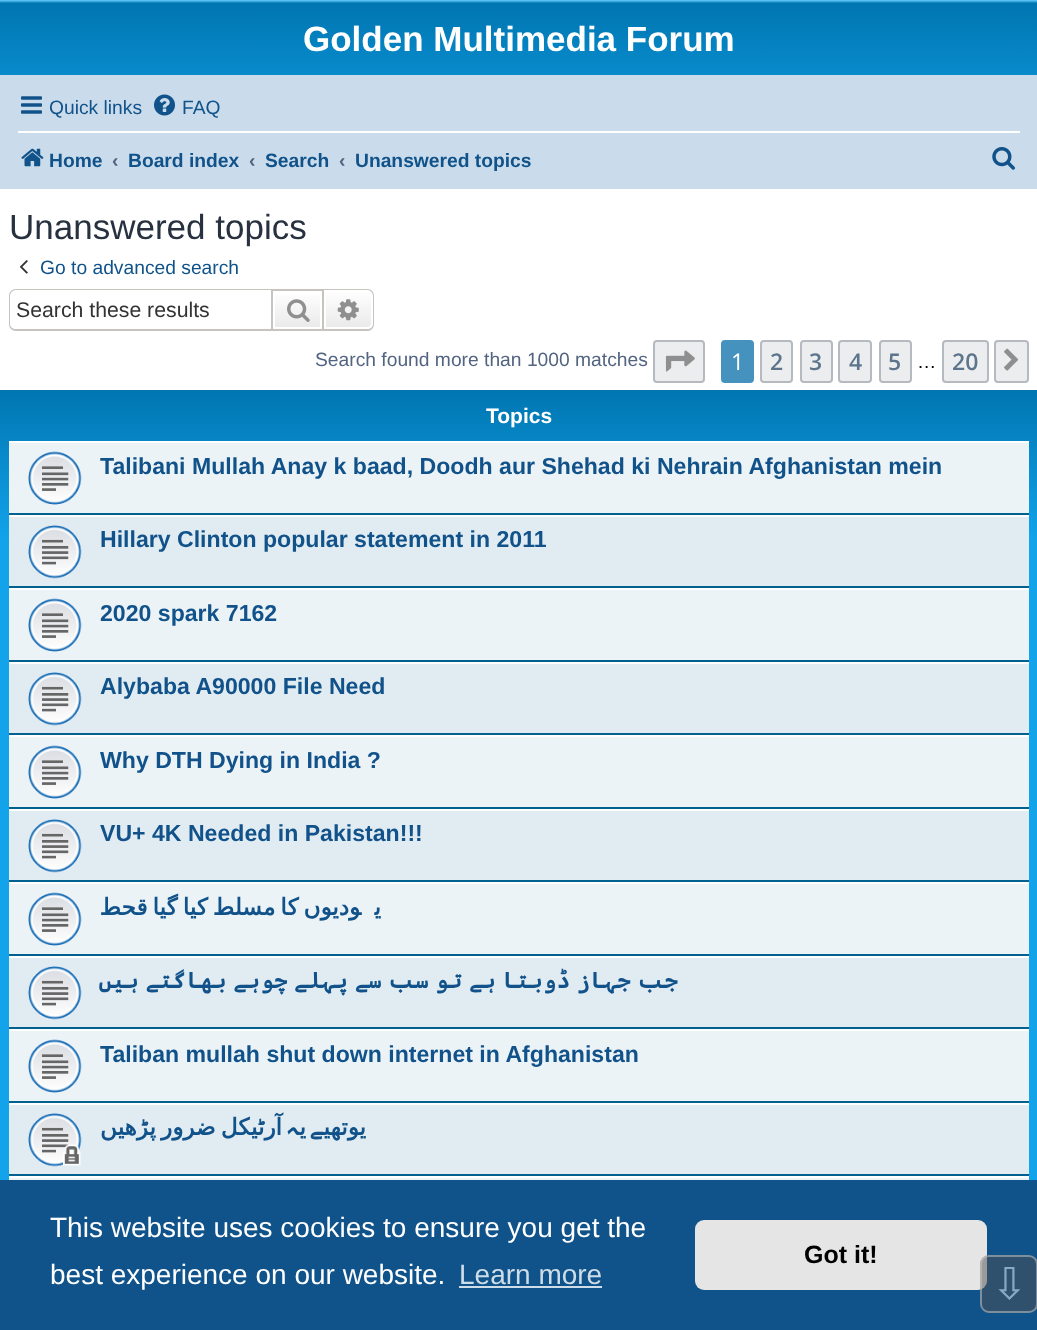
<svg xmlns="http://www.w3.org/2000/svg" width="1037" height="1330">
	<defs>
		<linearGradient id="g1" gradientUnits="userSpaceOnUse" x1="519" y1="0" x2="519" y2="161"><stop offset="0" stop-color="#6ACEFF" /><stop offset="0.02" stop-color="#0076B1" /><stop offset="1" stop-color="#12A3EB" /></linearGradient>
		<linearGradient id="g2" gradientUnits="userSpaceOnUse" x1="298" y1="291" x2="298" y2="329"><stop offset="0" stop-color="#FFFFFF" /><stop offset="1" stop-color="#E9E9E9" /></linearGradient>
		<linearGradient id="g3" gradientUnits="userSpaceOnUse" x1="348" y1="291" x2="348" y2="329"><stop offset="0" stop-color="#FFFFFF" /><stop offset="1" stop-color="#E9E9E9" /></linearGradient>
		<linearGradient id="g4" gradientUnits="userSpaceOnUse" x1="519" y1="390" x2="519" y2="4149"><stop offset="0" stop-color="#6ACEFF" /><stop offset="0" stop-color="#0076B1" /><stop offset="0.04" stop-color="#12A3EB" /><stop offset="1" stop-color="#12A3EB" /></linearGradient>
	</defs>
	<rect width="100%" height="100%" fill="#FFFFFF" />
	<rect x="0" y="0" width="1037" height="75" fill="url(#g1)" />
	<text x="303" y="51" font-family="Liberation Sans" font-size="35" font-weight="700" fill="#FFFFFF">Golden Multimedia Forum</text>
	<rect x="0" y="75" width="1037" height="114" fill="#CADCEB" />
	<image x="21" y="96" width="21" height="18" href="assets/img1.png" />
	<text x="49" y="114" font-family="Liberation Sans" font-size="19.25" fill="#105289">Quick links</text>
	<image x="154" y="94" width="21" height="22" href="assets/img2.png" />
	<text x="182" y="114" font-family="Liberation Sans" font-size="19.25" fill="#105289">FAQ</text>
	<rect x="18" y="131" width="1002" height="2" fill="#FFFFFF" />
	<image x="21" y="148" width="23" height="19" href="assets/img3.png" />
	<text x="49" y="167" font-family="Liberation Sans" font-size="19.25" font-weight="700" fill="#105289">Home</text>
	<text x="112" y="167" font-family="Liberation Sans" font-size="19.25" font-weight="700" fill="#536482">‹</text>
	<text x="128" y="167" font-family="Liberation Sans" font-size="19.25" font-weight="700" fill="#105289">Board index</text>
	<text x="249" y="167" font-family="Liberation Sans" font-size="19.25" font-weight="700" fill="#536482">‹</text>
	<text x="265" y="167" font-family="Liberation Sans" font-size="19.25" font-weight="700" fill="#105289">Search</text>
	<text x="339" y="167" font-family="Liberation Sans" font-size="19.25" font-weight="700" fill="#536482">‹</text>
	<text x="355" y="167" font-family="Liberation Sans" font-size="19.25" font-weight="700" fill="#105289">Unanswered topics</text>
	<image x="992" y="147" width="23" height="23" href="assets/img4.png" />
	<text x="9" y="239" font-family="Liberation Sans" font-size="35" fill="#28313F">Unanswered topics</text>
	<image x="19" y="260" width="9" height="14" href="assets/img5.png" />
	<text x="40" y="274" font-family="Liberation Sans" font-size="19.25" fill="#105289">Go to advanced search</text>
	<path d="M16 289H271V331H16C12 331 9 328 9 324V296C9 292 12 289 16 289ZM16 290H271V329H16C13 329 10 327 10 324V296C10 293 13 290 16 290Z" fill="#C7C3BF" fill-rule="evenodd" />
	<text x="16" y="317" font-family="Liberation Sans" font-size="21.25" fill="#333333">Search these results</text>
	<rect x="275" y="295" width="45" height="32" fill="url(#g2)" />
	<rect x="272" y="290" width="51" height="40" fill="none" stroke="#C7C3BF" stroke-width="2" />
	<image x="287" y="299" width="23" height="23" href="assets/img6.png" />
	<path d="M325 292H368C370 292 372 294 372 296V324C372 326 370 328 368 328H325Z" fill="url(#g3)" stroke="#FFFFFF" stroke-width="2" />
	<path d="M324 289H368C371 289 374 292 374 296V324C374 328 371 331 368 331H324ZM324 290H368C370 290 373 293 373 296V324C373 327 370 329 368 329H324Z" fill="#C7C3BF" fill-rule="evenodd" />
	<image x="337" y="299" width="22" height="22" href="assets/img7.png" />
	<text x="315" y="366" font-family="Liberation Sans" font-size="19.25" fill="#536482">Search found more than 1000 matches</text>
	<rect x="654" y="341" width="50" height="41" rx="3" fill="#ECEDEE" stroke="#B4BAC0" stroke-width="2" />
	<image x="665" y="350" width="30" height="22" href="assets/img8.png" />
	<rect x="722" y="341" width="31" height="41" rx="3" fill="#4692BF" stroke="#4692BF" stroke-width="2" />
	<text x="731" y="370" font-family="Open Sans" font-size="23" fill="#FFFFFF">1</text>
	<rect x="761" y="341" width="31" height="41" rx="3" fill="#ECEDEE" stroke="#B4BAC0" stroke-width="2" />
	<text x="770" y="370" font-family="Open Sans" font-size="23" font-weight="600" fill="#5C758C">2</text>
	<rect x="801" y="341" width="31" height="41" rx="3" fill="#ECEDEE" stroke="#B4BAC0" stroke-width="2" />
	<text x="809" y="370" font-family="Open Sans" font-size="23" font-weight="600" fill="#5C758C">3</text>
	<rect x="839" y="341" width="32" height="41" rx="3" fill="#ECEDEE" stroke="#B4BAC0" stroke-width="2" />
	<text x="849" y="370" font-family="Open Sans" font-size="23" font-weight="600" fill="#5C758C">4</text>
	<rect x="880" y="341" width="31" height="41" rx="3" fill="#ECEDEE" stroke="#B4BAC0" stroke-width="2" />
	<text x="888" y="370" font-family="Open Sans" font-size="23" font-weight="600" fill="#5C758C">5</text>
	<text x="917" y="368" font-family="Liberation Sans" font-size="19.25" fill="#000000">…</text>
	<rect x="943" y="341" width="45" height="41" rx="3" fill="#ECEDEE" stroke="#B4BAC0" stroke-width="2" />
	<text x="952" y="370" font-family="Open Sans" font-size="23" font-weight="600" fill="#5C758C">20</text>
	<rect x="995" y="341" width="33" height="41" rx="3" fill="#ECEDEE" stroke="#B4BAC0" stroke-width="2" />
	<image x="1004" y="348" width="15" height="23" href="assets/img9.png" />
	<rect x="0" y="390" width="1037" height="790" fill="url(#g4)" />
	<text x="486" y="423" font-family="Liberation Sans" font-size="21" font-weight="700" fill="#FFFFFF">Topics</text>
	<rect x="9" y="443" width="1020" height="70" fill="#ECF3F7" />
	<rect x="9" y="441" width="1020" height="2" fill="#FFFFFF" />
	<rect x="9" y="513" width="1020" height="2" fill="#00608F" />
	<image x="28" y="451" width="54" height="54" href="assets/img10.png" />
	<text x="100" y="474" font-family="Liberation Sans" font-size="23.1" font-weight="700" fill="#105289">Talibani Mullah Anay k baad, Doodh aur Shehad ki Nehrain Afghanistan mein</text>
	<rect x="9" y="517" width="1020" height="69" fill="#E1EBF2" />
	<rect x="9" y="515" width="1020" height="2" fill="#FFFFFF" />
	<rect x="9" y="586" width="1020" height="2" fill="#00608F" />
	<image x="28" y="525" width="54" height="54" href="assets/img11.png" />
	<text x="100" y="547" font-family="Liberation Sans" font-size="23.1" font-weight="700" fill="#105289">Hillary Clinton popular statement in 2011</text>
	<rect x="9" y="590" width="1020" height="70" fill="#ECF3F7" />
	<rect x="9" y="588" width="1020" height="2" fill="#FFFFFF" />
	<rect x="9" y="660" width="1020" height="2" fill="#00608F" />
	<image x="28" y="598" width="54" height="54" href="assets/img10.png" />
	<text x="100" y="621" font-family="Liberation Sans" font-size="23.1" font-weight="700" fill="#105289">2020 spark 7162</text>
	<rect x="9" y="664" width="1020" height="69" fill="#E1EBF2" />
	<rect x="9" y="662" width="1020" height="2" fill="#FFFFFF" />
	<rect x="9" y="733" width="1020" height="2" fill="#00608F" />
	<image x="28" y="672" width="54" height="54" href="assets/img11.png" />
	<text x="100" y="694" font-family="Liberation Sans" font-size="23.1" font-weight="700" fill="#105289">Alybaba A90000 File Need</text>
	<rect x="9" y="737" width="1020" height="70" fill="#ECF3F7" />
	<rect x="9" y="735" width="1020" height="2" fill="#FFFFFF" />
	<rect x="9" y="807" width="1020" height="2" fill="#00608F" />
	<image x="28" y="745" width="54" height="54" href="assets/img10.png" />
	<text x="100" y="768" font-family="Liberation Sans" font-size="23.1" font-weight="700" fill="#105289">Why DTH Dying in India ?</text>
	<rect x="9" y="811" width="1020" height="69" fill="#E1EBF2" />
	<rect x="9" y="809" width="1020" height="2" fill="#FFFFFF" />
	<rect x="9" y="880" width="1020" height="2" fill="#00608F" />
	<image x="28" y="819" width="54" height="54" href="assets/img11.png" />
	<text x="100" y="841" font-family="Liberation Sans" font-size="23.1" font-weight="700" fill="#105289">VU+ 4K Needed in Pakistan!!!</text>
	<rect x="9" y="884" width="1020" height="70" fill="#ECF3F7" />
	<rect x="9" y="882" width="1020" height="2" fill="#FFFFFF" />
	<rect x="9" y="954" width="1020" height="2" fill="#00608F" />
	<image x="28" y="892" width="54" height="54" href="assets/img10.png" />
	<g font-family="DejaVu Sans" font-size="23.1" font-weight="700" direction="rtl" fill="#105289">
		<text x="361" y="915" word-spacing="-2.25">‍ودیوں کا مسلط کیا گیا قحط</text>
		<text x="381" y="915">ی‍</text>
	</g>
	<rect x="9" y="958" width="1020" height="69" fill="#E1EBF2" />
	<rect x="9" y="956" width="1020" height="2" fill="#FFFFFF" />
	<rect x="9" y="1027" width="1020" height="2" fill="#00608F" />
	<image x="28" y="966" width="54" height="54" href="assets/img11.png" />
	<text x="678" y="988" word-spacing="-7" font-family="Cascadia Code" font-size="23.1" font-weight="700" direction="rtl" fill="#105289">جب جہاز ڈوبتا ہے تو سب سے پہلے چوہے بھاگتے ہیں</text>
	<rect x="9" y="1031" width="1020" height="70" fill="#ECF3F7" />
	<rect x="9" y="1029" width="1020" height="2" fill="#FFFFFF" />
	<rect x="9" y="1101" width="1020" height="2" fill="#00608F" />
	<image x="28" y="1039" width="54" height="54" href="assets/img10.png" />
	<text x="100" y="1062" font-family="Liberation Sans" font-size="23.1" font-weight="700" fill="#105289">Taliban mullah shut down internet in Afghanistan</text>
	<rect x="9" y="1105" width="1020" height="69" fill="#E1EBF2" />
	<rect x="9" y="1103" width="1020" height="2" fill="#FFFFFF" />
	<rect x="9" y="1174" width="1020" height="2" fill="#00608F" />
	<image x="28" y="1113" width="54" height="54" href="assets/img12.png" />
	<text x="282" y="1135" word-spacing="-2.25" font-family="DejaVu Sans" font-size="23.1" font-weight="700" direction="rtl" fill="#105289">آرٹیکل ضرور پڑھیں</text>
	<text x="299" y="1135" font-family="Cascadia Code" font-size="23.1" font-weight="700" direction="rtl" fill="#105289">‍ہ</text>
	<text x="306" y="1135" font-family="DejaVu Sans" font-size="23.1" font-weight="700" direction="rtl" fill="#105289">ی‍</text>
	<text x="323" y="1135" font-family="Cascadia Code" font-size="23.1" font-weight="700" direction="rtl" fill="#105289">‍ے</text>
	<text x="366" y="1135" font-family="DejaVu Sans" font-size="23.1" font-weight="700" direction="rtl" fill="#105289">یوتھی‍</text>
	<rect x="9" y="1178" width="1020" height="2" fill="#ECF3F7" />
	<rect x="9" y="1176" width="1020" height="2" fill="#FFFFFF" />
	<rect x="0" y="1180" width="1037" height="150" fill="#0F538A" />
	<g font-family="Liberation Sans" font-size="28" fill="#FFFFFF">
		<text x="50" y="1237">This website uses cookies to ensure you get the</text>
		<text x="50" y="1284">best experience on our website.</text>
	</g>
	<text x="459" y="1284" font-family="Liberation Sans" font-size="28" fill="#CFDDE8">Learn more</text>
	<rect x="459" y="1286" width="143" height="2" fill="#CFDDE8" />
	<rect x="695" y="1220" width="292" height="70" rx="9" fill="#E5E5E5" />
	<text x="804" y="1263" font-family="Liberation Sans" font-size="25" font-weight="700" fill="#000000">Got it!</text>
	<rect x="980" y="1255" width="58" height="58" rx="9" fill="#4F4F4F" fill-opacity="0.5" />
	<rect x="981" y="1256" width="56" height="56" rx="8" fill="none" stroke="#CCCCCC" stroke-opacity="0.5" stroke-width="2" />
	<text x="991" y="1299" font-family="DejaVu Sans" font-size="44" fill="#87A9C5">⇩</text>
</svg>
